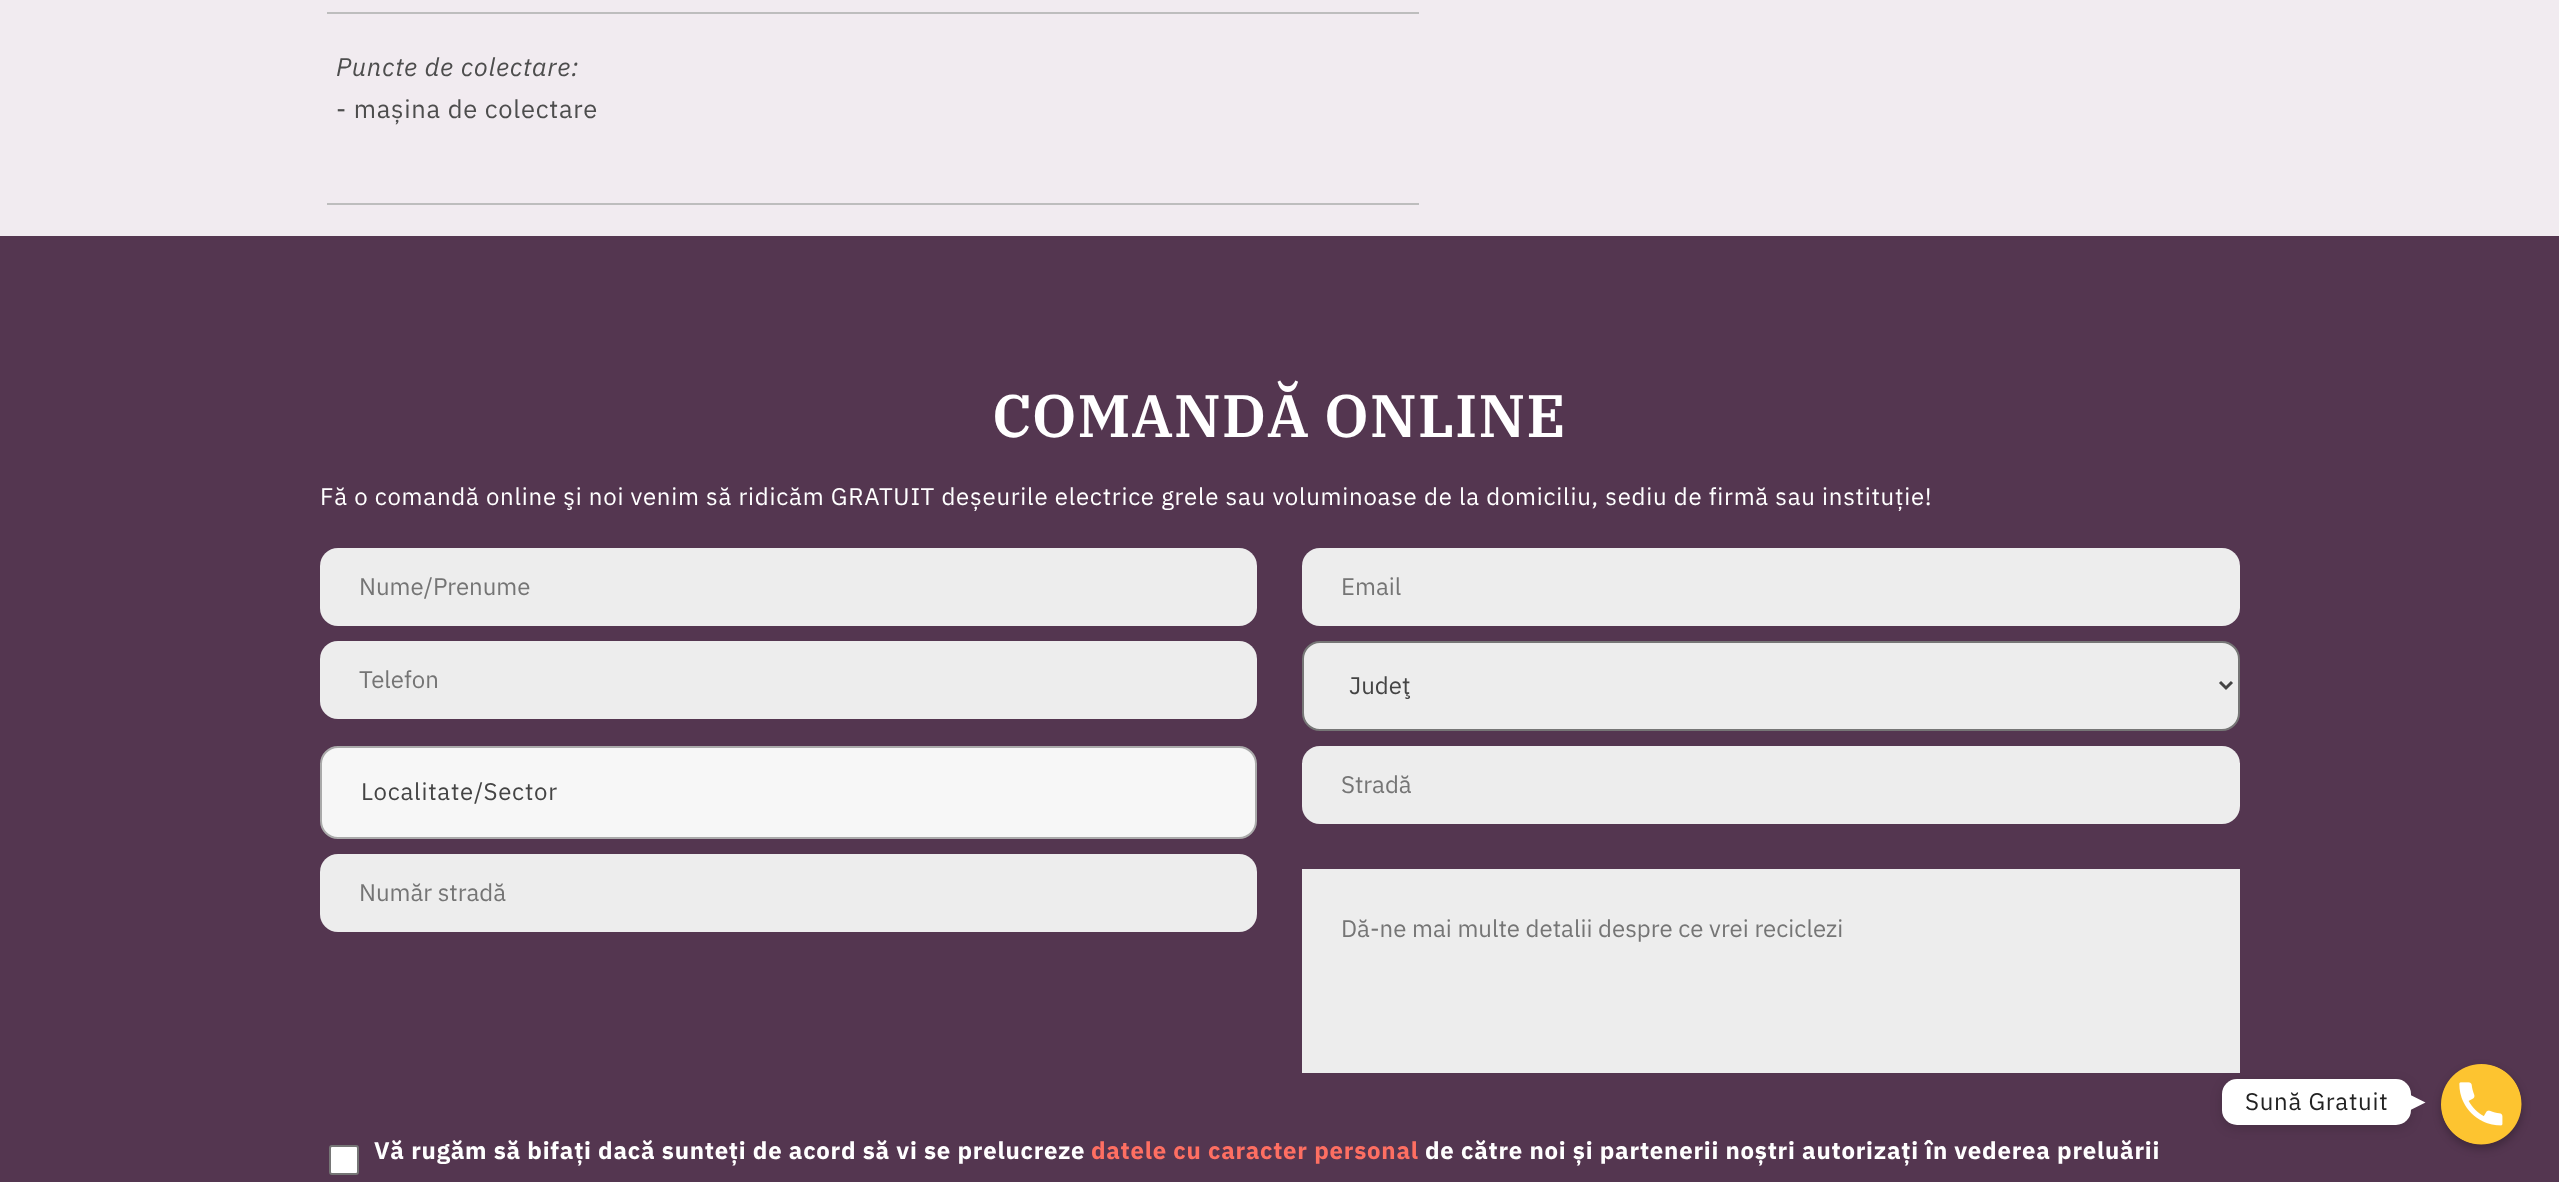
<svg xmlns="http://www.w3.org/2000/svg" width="2559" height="1182">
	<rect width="100%" height="100%" fill="#F1EBF0" />
	<rect x="327" y="12" width="1092" height="2" fill="#BDBDBD" />
	<text x="336" y="76" font-family="IBM Plex Sans" font-size="25.5" font-style="italic" letter-spacing="0.75" fill="#4D4D4D">Puncte de colectare:</text>
	<text x="336" y="118" font-family="IBM Plex Sans" font-size="25.5" letter-spacing="0.75" fill="#4D4D4D">- mașina de colectare</text>
	<rect x="327" y="203" width="1092" height="2" fill="#BDBDBD" />
	<rect x="0" y="236" width="2559" height="946" fill="#543650" />
	<text x="992" y="437" font-family="IBM Plex Serif" font-size="60" font-weight="600" letter-spacing="0.75" fill="#FFFFFF">COMANDĂ ONLINE</text>
	<text x="320" y="505" font-family="IBM Plex Sans" font-size="24" letter-spacing="0.75" fill="#FFFFFF">Fă o comandă online şi noi venim să ridicăm GRATUIT deșeurile electrice grele sau voluminoase de la domiciliu, sediu de firmă sau instituție!</text>
	<rect x="320" y="548" width="937" height="78" rx="18" fill="#EDEDED" />
	<text x="359" y="595" font-family="IBM Plex Sans" font-size="24" fill="#757575">Nume/Prenume</text>
	<rect x="1302" y="548" width="938" height="78" rx="18" fill="#EDEDED" />
	<text x="1341" y="595" font-family="IBM Plex Sans" font-size="24" fill="#757575">Email</text>
	<rect x="320" y="641" width="937" height="78" rx="18" fill="#EDEDED" />
	<text x="359" y="688" font-family="IBM Plex Sans" font-size="24" fill="#757575">Telefon</text>
	<rect x="1303" y="642" width="936" height="88" rx="17" fill="#EDEDED" stroke="#767676" stroke-width="2" />
	<path d="M2220 682L2226 688L2232 682" fill="none" stroke="#444444" stroke-width="3" />
	<text x="1349" y="694" font-family="IBM Plex Sans" font-size="24" fill="#444444">Judeţ</text>
	<rect x="321" y="747" width="935" height="91" rx="17" fill="#F7F7F7" stroke="#AAAAAA" stroke-width="2" />
	<text x="361" y="800" font-family="IBM Plex Sans" font-size="24" letter-spacing="0.75" fill="#444444">Localitate/Sector</text>
	<rect x="1302" y="746" width="938" height="78" rx="18" fill="#EDEDED" />
	<text x="1341" y="793" font-family="IBM Plex Sans" font-size="24" fill="#757575">Stradă</text>
	<rect x="320" y="854" width="937" height="78" rx="18" fill="#EDEDED" />
	<text x="359" y="901" font-family="IBM Plex Sans" font-size="24" fill="#757575">Număr stradă</text>
	<rect x="1302" y="869" width="938" height="204" fill="#EDEDED" />
	<text x="1341" y="937" font-family="IBM Plex Sans" font-size="24" fill="#757575">Dă-ne mai multe detalii despre ce vrei reciclezi</text>
	<rect x="330" y="1146" width="28" height="28" rx="2" fill="#FFFFFF" stroke="#767676" stroke-width="2" />
	<text x="374" y="1159" font-family="IBM Plex Sans" font-size="24" font-weight="700" letter-spacing="0.75" fill="#FFFFFF">Vă rugăm să bifați dacă sunteți de acord să vi se prelucreze</text>
	<text x="1091" y="1159" font-family="IBM Plex Sans" font-size="24" font-weight="700" letter-spacing="0.75" fill="#FE6F62">datele cu caracter personal</text>
	<text x="1425" y="1159" font-family="IBM Plex Sans" font-size="24" font-weight="700" letter-spacing="0.75" fill="#FFFFFF">de către noi și partenerii noștri autorizați în vederea preluării</text>
	<rect x="2441" y="1068" width="81" height="81" rx="40.5" fill="#000000" fill-opacity="0.25" filter="blur(4.5px)" />
	<rect x="2222" y="1082" width="189" height="46" rx="15" fill="#000000" fill-opacity="0.15" filter="blur(6px)" />
	<rect x="2222" y="1079" width="189" height="46" rx="15" fill="#FFFFFF" />
	<text x="2245" y="1110" font-family="IBM Plex Sans" font-size="24" letter-spacing="0.75" fill="#222222">Sună Gratuit</text>
	<path d="M2410.5 1110V1095L2425.5 1102.5Z" fill="#FFFFFF" />
	<image x="2441" y="1064" width="81" height="81" href="assets/img1.png" />
</svg>
